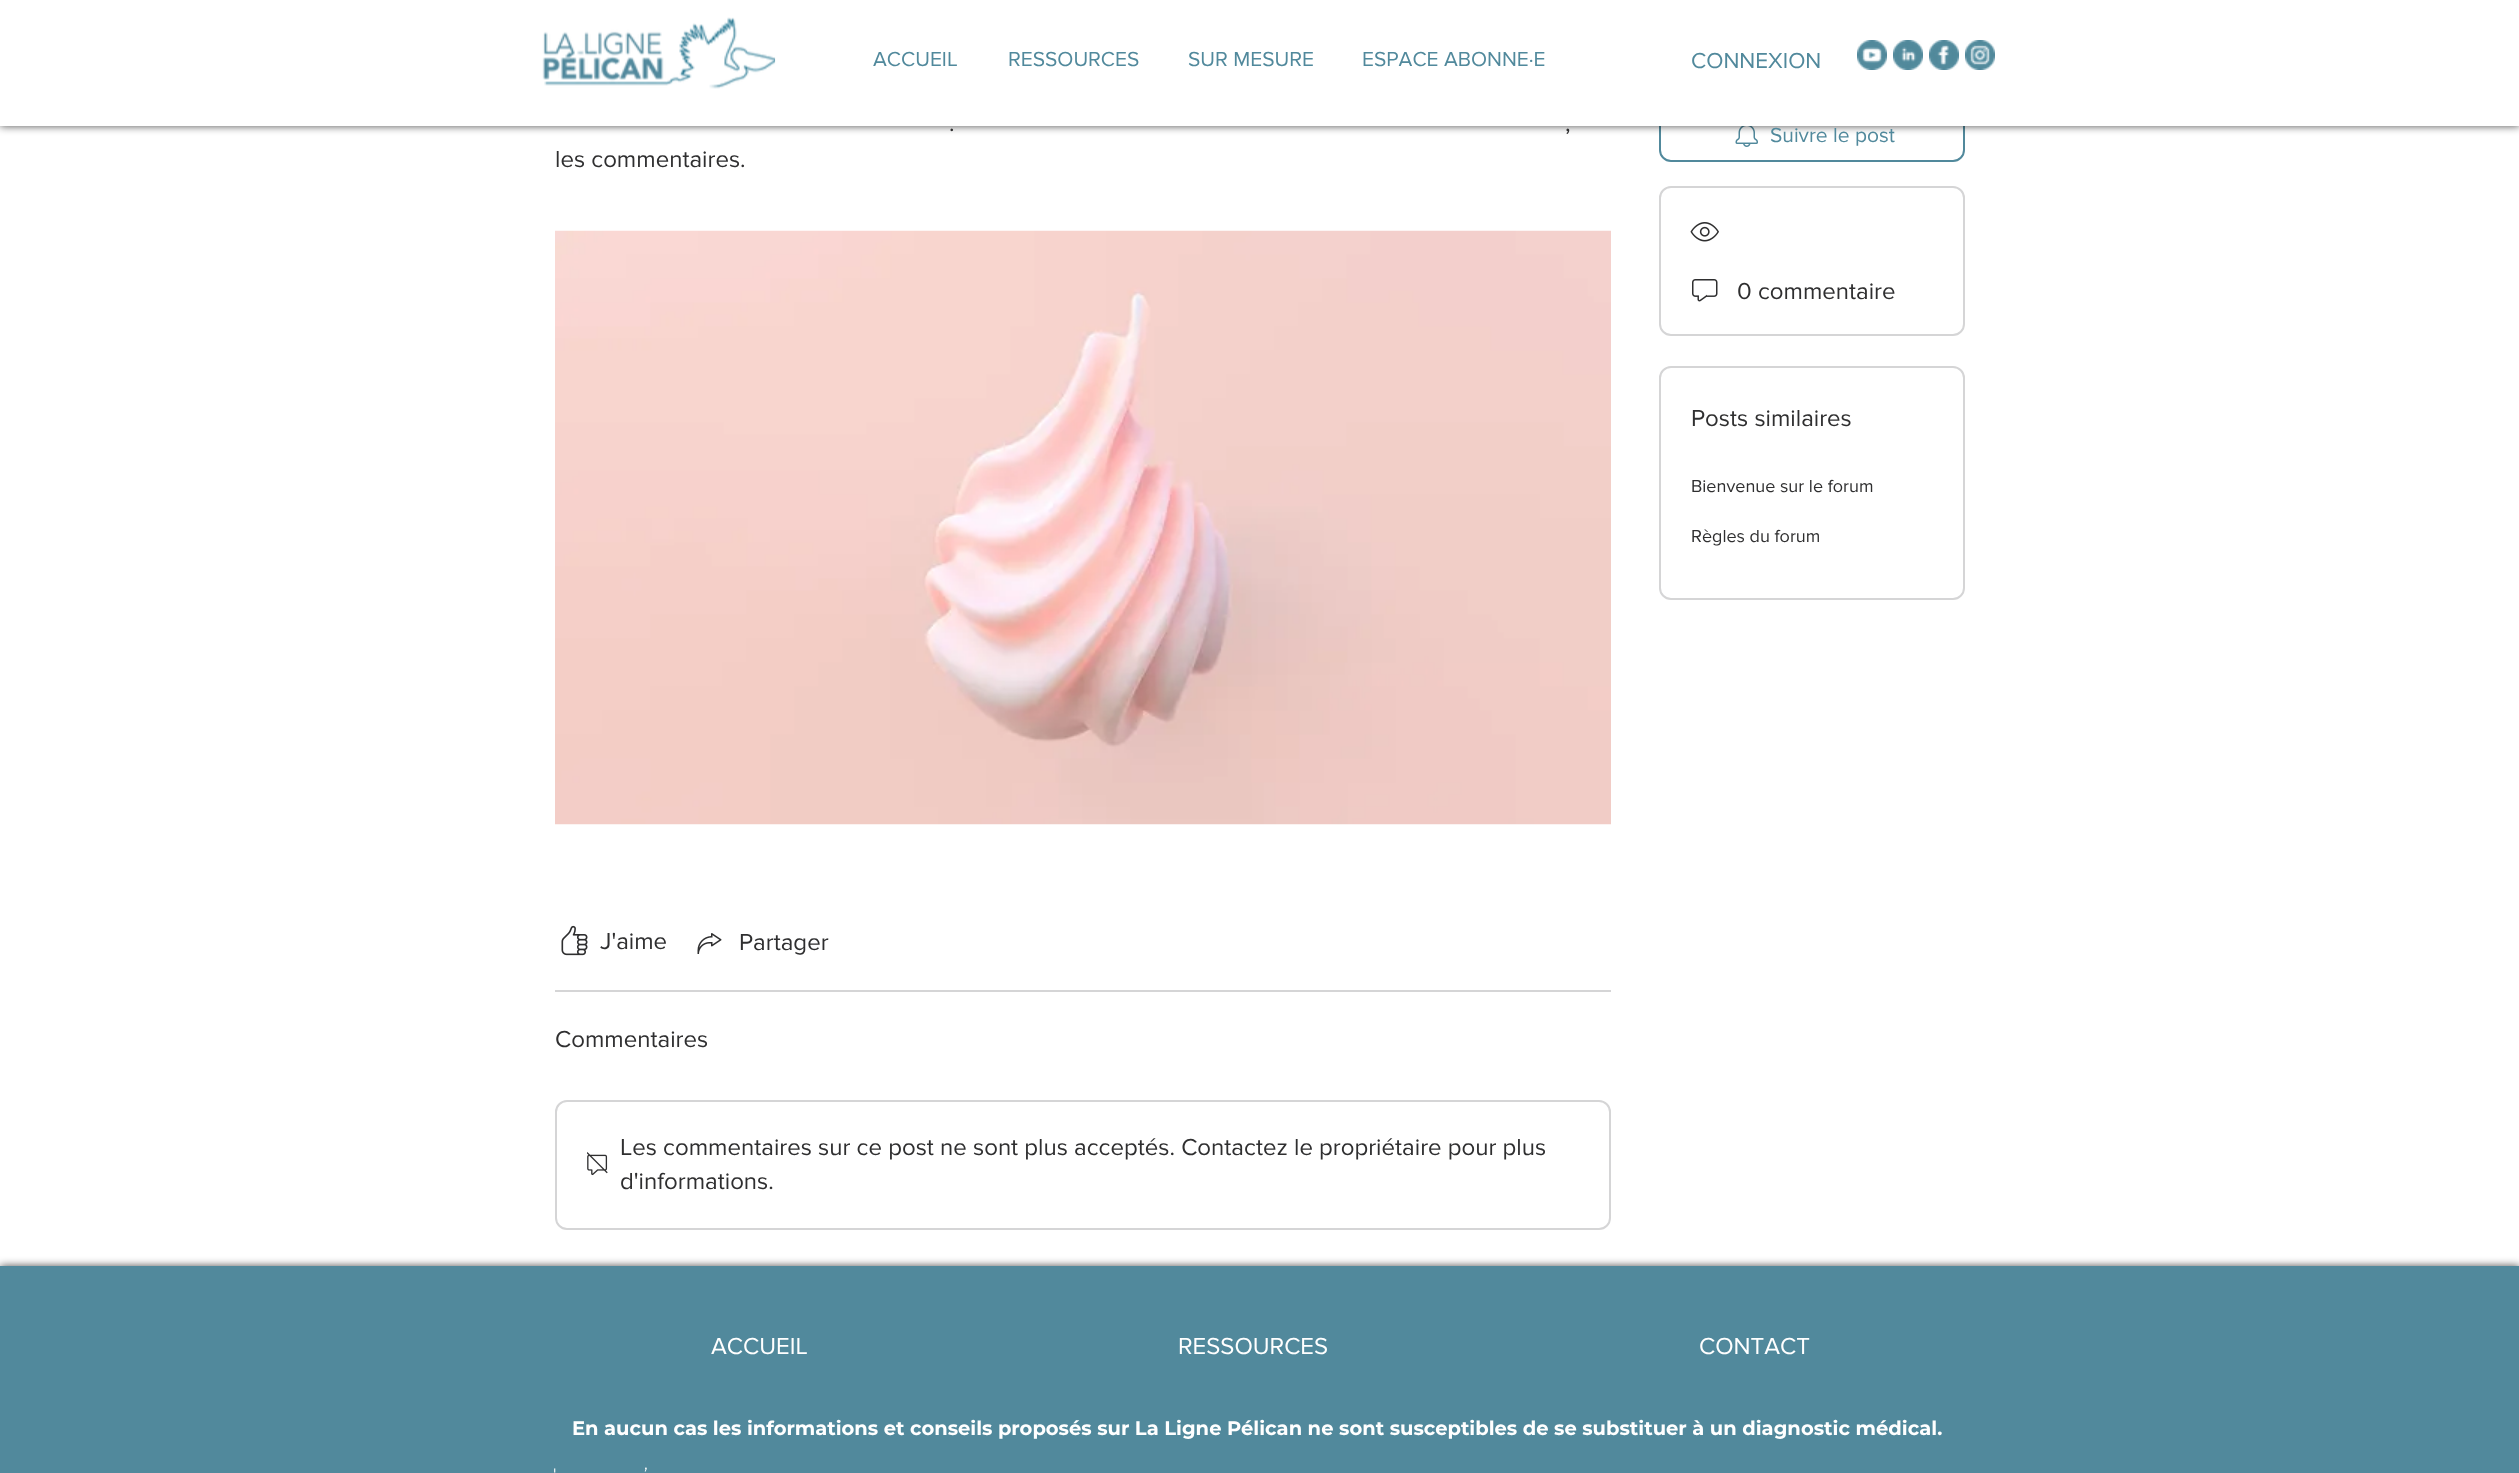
<svg xmlns="http://www.w3.org/2000/svg" width="2519" height="1473">
	<rect width="100%" height="100%" fill="#FFFFFF" />
	<rect x="1660" y="109" width="304" height="52" rx="11" fill="none" stroke="#51899C" stroke-width="2" />
	<image x="1735" y="126" width="23" height="21" href="assets/img10.png" />
	<rect x="0" y="0" width="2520" height="126" fill="#000000" fill-opacity="0.7" filter="blur(4px)" />
	<rect x="0" y="0" width="2519" height="126" fill="#FFFFFF" />
	<image x="542" y="17" width="234" height="72" href="assets/img1.png" />
	<g font-family="'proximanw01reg'" font-size="21" fill="#51899C">
		<text x="873" y="66">ACCUEIL</text>
		<text x="1008" y="66">RESSOURCES</text>
		<text x="1188" y="66">SUR MESURE</text>
		<text x="1362" y="66">ESPACE ABONNE·E</text>
	</g>
	<text x="1691" y="68" font-family="'proximanw01reg'" font-size="22.5" fill="#51899C">CONNEXION</text>
	<image x="1857" y="40" width="30" height="30" href="assets/img2.png" />
	<image x="1893" y="40" width="30" height="30" href="assets/img3.png" />
	<image x="1929" y="40" width="30" height="30" href="assets/img4.png" />
	<image x="1965" y="40" width="30" height="30" href="assets/img5.png" />
	<g font-family="'proximanw01reg'" font-size="24" fill="#2F2F30">
		<text x="949" y="131">.</text>
		<text x="1565" y="131">,</text>
		<text x="555" y="167">les commentaires.</text>
	</g>
	<image x="555" y="230" width="1056" height="595" href="assets/img6.png" />
	<image x="561" y="925" width="27" height="31" href="assets/img7.png" />
	<text x="600" y="949" font-family="'proximanw01reg'" font-size="24" fill="#2F2F30">J'aime</text>
	<image x="697" y="933" width="25" height="21" href="assets/img8.png" />
	<text x="739" y="950" font-family="'proximanw01reg'" font-size="24" fill="#2F2F30">Partager</text>
	<rect x="555" y="990" width="1056" height="2" fill="#D5D5D6" />
	<text x="555" y="1047" font-family="'proximanw01reg'" font-size="24" fill="#2F2F30">Commentaires</text>
	<rect x="556" y="1101" width="1054" height="128" rx="11" fill="none" stroke="#D5D5D6" stroke-width="2" />
	<image x="587" y="1152" width="21" height="24" href="assets/img9.png" />
	<g font-family="'proximanw01reg'" font-size="24" fill="#2F2F30">
		<text x="620" y="1155">Les commentaires sur ce post ne sont plus acceptés. Contactez le propriétaire pour plus</text>
		<text x="620" y="1189">d'informations.</text>
	</g>
	<text x="1770" y="142" font-family="'proximanw01reg'" font-size="21" fill="#51899C">Suivre le post</text>
	<rect x="1660" y="187" width="304" height="148" rx="11" fill="none" stroke="#D5D5D6" stroke-width="2" />
	<image x="1690" y="222" width="29" height="20" href="assets/img11.png" />
	<image x="1692" y="279" width="26" height="23" href="assets/img12.png" />
	<text x="1737" y="299" font-family="'proximanw01reg'" font-size="24" fill="#2F2F30">0 commentaire</text>
	<rect x="1660" y="367" width="304" height="232" rx="11" fill="none" stroke="#D5D5D6" stroke-width="2" />
	<text x="1691" y="426" font-family="'proximanw01reg'" font-size="24" fill="#2F2F30">Posts similaires</text>
	<g font-family="'proximanw01reg'" font-size="18" fill="#2F2F30">
		<text x="1691" y="492">Bienvenue sur le forum</text>
		<text x="1691" y="542">Règles du forum</text>
	</g>
	<rect x="0" y="1266" width="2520" height="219" fill="#000000" fill-opacity="0.7" filter="blur(4px)" />
	<rect x="0" y="1266" width="2519" height="207" fill="#51899C" />
	<g font-family="'proximanw01reg'" font-size="24" fill="#FFFFFF">
		<text x="711" y="1354">ACCUEIL</text>
		<text x="1178" y="1354">RESSOURCES</text>
		<text x="1699" y="1354">CONTACT</text>
	</g>
	<text x="572" y="1435" font-family="Montserrat" font-size="19.5" font-weight="700" fill="#FFFFFF">En aucun cas les informations et conseils proposés sur La Ligne Pélican ne sont susceptibles de se substituer à un diagnostic médical.</text>
	<g font-family="Montserrat" font-size="19.5" font-weight="300" fill="#FFFFFF">
		<text x="553" y="1482">'</text>
		<text x="644" y="1482">’</text>
	</g>
</svg>
